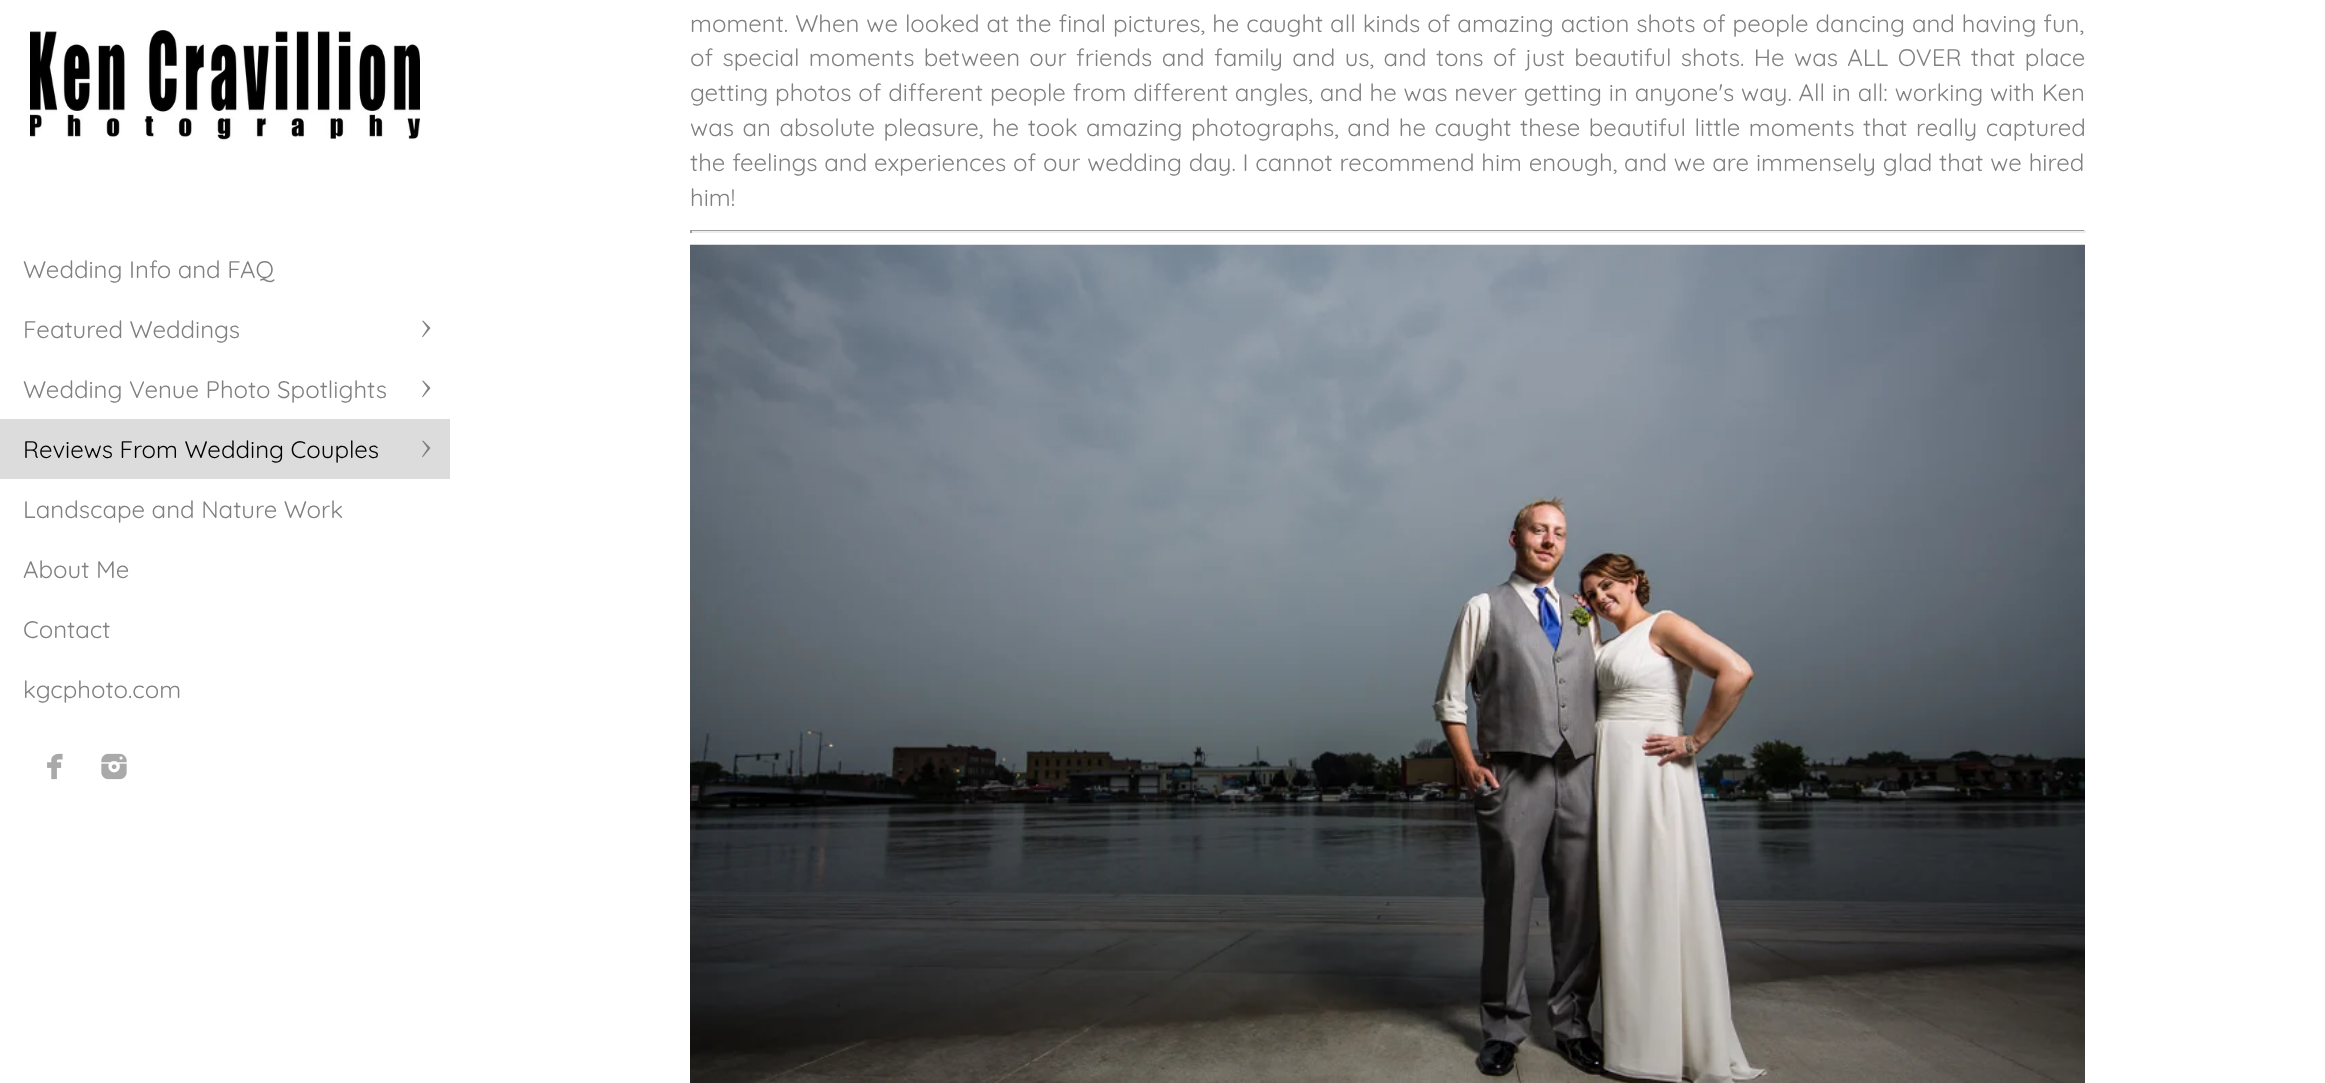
<svg xmlns="http://www.w3.org/2000/svg" width="2325" height="1083">
	<rect width="100%" height="100%" fill="#FFFFFF" />
	<g font-family="Quicksand" font-size="24" font-weight="300" fill="#808080">
		<text x="690" y="32" word-spacing="0.4">moment. When we looked at the final pictures, he caught all kinds of amazing action shots of people dancing and having fun,</text>
		<text x="690" y="66" word-spacing="2.8">of special moments between our friends and family and us, and tons of just beautiful shots. He was ALL OVER that place</text>
		<text x="690" y="101" word-spacing="0.25">getting photos of different people from different angles, and he was never getting in anyone's way. All in all: working with Ken</text>
		<text x="690" y="136" word-spacing="2">was an absolute pleasure, he took amazing photographs, and he caught these beautiful little moments that really captured</text>
		<text x="690" y="171" word-spacing="0.25">the feelings and experiences of our wedding day. I cannot recommend him enough, and we are immensely glad that we hired</text>
		<text x="690" y="206">him!</text>
	</g>
	<rect x="690" y="230" width="1395" height="1" fill="#9F9F9F" />
	<rect x="2084" y="230" width="2" height="3" fill="#EEEEEE" />
	<rect x="690" y="231" width="1395" height="2" fill="#EEEEEE" />
	<rect x="690" y="230" width="2" height="3" fill="#9F9F9F" />
	<image x="690" y="244" width="1395" height="839" href="assets/img1.png" />
	<image x="30" y="30" width="390" height="112" href="assets/img2.png" />
	<g font-family="Quicksand" font-size="24" font-weight="300" fill="#808080">
		<text x="23" y="278">Wedding Info and FAQ</text>
		<text x="23" y="338">Featured Weddings</text>
	</g>
	<image x="422" y="320" width="9" height="18" href="assets/img3.png" />
	<text x="23" y="398" font-family="Quicksand" font-size="24" font-weight="300" fill="#808080">Wedding Venue Photo Spotlights</text>
	<image x="422" y="380" width="9" height="18" href="assets/img3.png" />
	<rect x="0" y="419" width="450" height="60" fill="#DCDCDC" />
	<text x="23" y="458" font-family="Quicksand" font-size="24" font-weight="300" fill="#000000">Reviews From Wedding Couples</text>
	<image x="422" y="440" width="9" height="18" href="assets/img4.png" />
	<g font-family="Quicksand" font-size="24" font-weight="300" fill="#808080">
		<text x="23" y="518">Landscape and Nature Work</text>
		<text x="23" y="578">About Me</text>
		<text x="23" y="638">Contact</text>
		<text x="23" y="698">kgcphoto.com</text>
	</g>
	<image x="47" y="753" width="16" height="27" href="assets/img5.png" />
	<image x="101" y="753" width="26" height="27" href="assets/img6.png" />
</svg>
